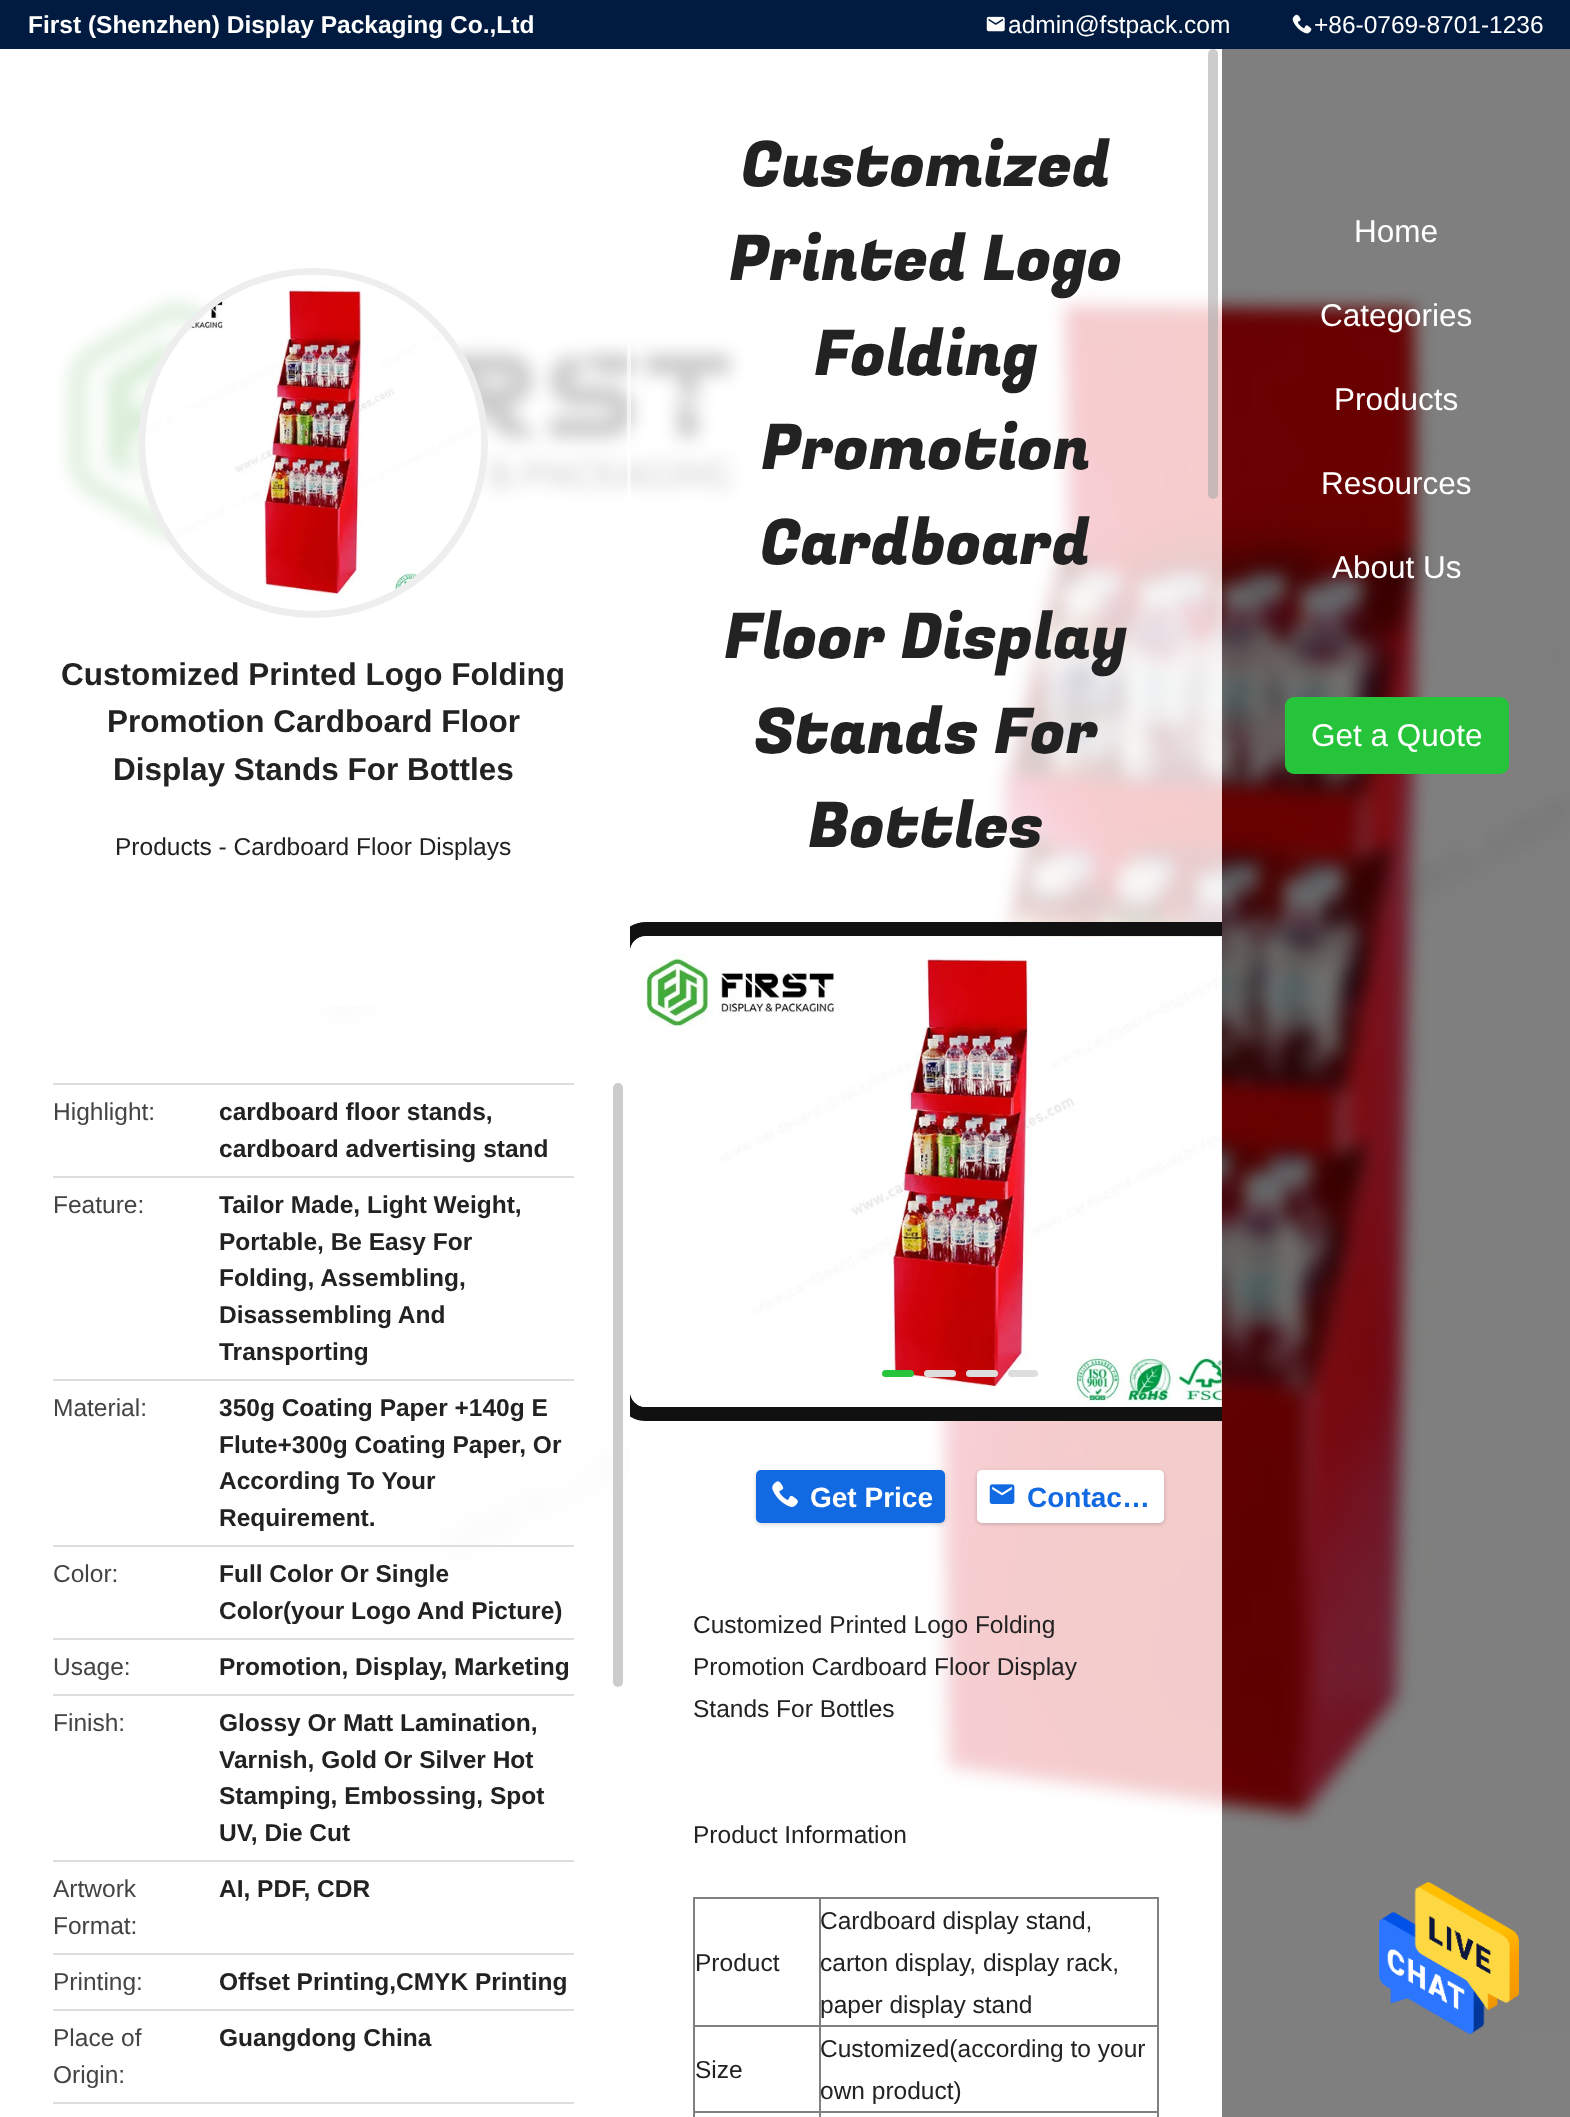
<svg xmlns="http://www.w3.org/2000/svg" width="1570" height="2117">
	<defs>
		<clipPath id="clip1"><rect x="630" y="49" width="592" height="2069" /></clipPath>
	</defs>
	<rect width="100%" height="100%" fill="#FFFFFF" />
	<rect x="0" y="0" width="1570" height="49" fill="#001B3F" />
	<text x="28" y="33" font-family="Liberation Sans" font-size="24.5" font-weight="700" fill="#FFFFFF">First (Shenzhen) Display Packaging Co.,Ltd</text>
	<image x="986" y="16" width="19" height="16" href="assets/img1.png" />
	<text x="1008" y="33" font-family="Liberation Sans" font-size="24.5" fill="#FFFFFF">admin@fstpack.com</text>
	<image x="1292" y="14" width="20" height="20" href="assets/img2.png" />
	<text x="1314" y="33" font-family="Liberation Sans" font-size="24.5" fill="#FFFFFF">+86-0769-8701-1236</text>
	<image x="54" y="286" width="1516" height="1544" href="assets/img6.png" />
	<rect x="54" y="286" width="576" height="720" fill="#FFFFFF" fill-opacity="0.8" />
	<rect x="627" y="338" width="4" height="163" fill="#FFFFFF" fill-opacity="0.6" />
	<rect x="630" y="287" width="592" height="1534" fill="#FFFFFF" fill-opacity="0.8" />
	<g font-family="Fugaz One" font-size="63" fill="#222222">
		<text x="741" y="186">Customized</text>
		<text x="729" y="280">Printed Logo</text>
		<text x="814" y="375">Folding</text>
		<text x="761" y="469">Promotion</text>
		<text x="760" y="564">Cardboard</text>
		<text x="724" y="658">Floor Display</text>
		<text x="754" y="753">Stands For</text>
		<text x="808" y="847">Bottles</text>
	</g>
	<rect x="1208" y="49" width="10" height="450" rx="5" fill="#AAAAAA" fill-opacity="0.6" />
	<rect x="1222" y="49" width="348" height="2068" fill="#000000" fill-opacity="0.5" />
	<rect x="613" y="1083" width="10" height="604" rx="5" fill="#CCCCCC" />
	<g clip-path="url(#clip1)">
		<rect x="623" y="929" width="674" height="485" rx="23" fill="none" stroke="#111111" stroke-width="14" />
	</g>
	<image x="630" y="936" width="592" height="471" href="assets/img3.png" />
	<rect x="882" y="1370" width="32" height="7" rx="3.5" fill="#26C43A" />
	<rect x="924" y="1370" width="32" height="7" rx="3.5" fill="#DDDDDD" />
	<rect x="966" y="1370" width="32" height="7" rx="3.5" fill="#DDDDDD" />
	<rect x="1008" y="1370" width="30" height="7" rx="3.5" fill="#DDDDDD" />
	<rect x="756" y="1472" width="189" height="52" rx="5" fill="#000000" fill-opacity="0.2" filter="blur(2px)" />
	<rect x="756" y="1470" width="189" height="53" rx="5" fill="#126AE2" />
	<image x="772" y="1481" width="26" height="26" href="assets/img4.png" />
	<text x="810" y="1507" font-family="Liberation Sans" font-size="28" font-weight="700" fill="#FFFFFF">Get Price</text>
	<rect x="977" y="1472" width="187" height="52" rx="5" fill="#000000" fill-opacity="0.2" filter="blur(2px)" />
	<rect x="977" y="1470" width="187" height="53" rx="5" fill="#FFFFFF" />
	<image x="989" y="1484" width="26" height="20" href="assets/img5.png" />
	<text x="1027" y="1507" font-family="Liberation Sans" font-size="28" font-weight="700" fill="#126AE2">Contac…</text>
	<g font-family="Liberation Sans" font-size="24.5" fill="#222222">
		<text x="693" y="1633">Customized Printed Logo Folding</text>
		<text x="693" y="1675">Promotion Cardboard Floor Display</text>
		<text x="693" y="1717">Stands For Bottles</text>
		<text x="693" y="1843">Product Information</text>
	</g>
	<rect x="693" y="1897" width="466" height="2" fill="#808080" />
	<rect x="1157" y="1897" width="2" height="220" fill="#808080" />
	<rect x="693" y="1897" width="2" height="220" fill="#808080" />
	<text x="695" y="1971" font-family="Liberation Sans" font-size="24.5" fill="#222222">Product</text>
	<rect x="819" y="2025" width="340" height="2" fill="#808080" />
	<rect x="819" y="2111" width="340" height="2" fill="#808080" />
	<rect x="819" y="2111" width="2" height="6" fill="#808080" />
	<rect x="693" y="2111" width="128" height="2" fill="#808080" />
	<rect x="819" y="2025" width="2" height="87" fill="#808080" />
	<rect x="693" y="2025" width="128" height="2" fill="#808080" />
	<rect x="819" y="1897" width="2" height="130" fill="#808080" />
	<g font-family="Liberation Sans" font-size="24.5" fill="#222222">
		<text x="820" y="1929">Cardboard display stand,</text>
		<text x="820" y="1971">carton display, display rack,</text>
		<text x="820" y="2013">paper display stand</text>
		<text x="695" y="2078">Size</text>
		<text x="820" y="2057">Customized(according to your</text>
		<text x="820" y="2099">own product)</text>
	</g>
	<g font-family="Liberation Sans" font-size="31.5" fill="#FFFFFF">
		<text x="1354" y="242">Home</text>
		<text x="1320" y="326">Categories</text>
		<text x="1334" y="410">Products</text>
		<text x="1321" y="494">Resources</text>
		<text x="1332" y="578">About Us</text>
	</g>
	<rect x="1285" y="697" width="224" height="77" rx="9" fill="#26C43A" />
	<text x="1311" y="746" font-family="Liberation Sans" font-size="31.5" fill="#FFFFFF">Get a Quote</text>
	<circle cx="313" cy="443" r="171.5" fill="none" stroke="#EEEEEE" stroke-width="7" />
	<image x="145" y="274" width="336" height="323" href="assets/img7.png" />
	<g font-family="Liberation Sans" font-size="31.5" font-weight="700" fill="#222222">
		<text x="61" y="685">Customized Printed Logo Folding</text>
		<text x="107" y="732">Promotion Cardboard Floor</text>
		<text x="113" y="780">Display Stands For Bottles</text>
	</g>
	<text x="115" y="855" font-family="Liberation Sans" font-size="24.5" fill="#222222">Products - Cardboard Floor Displays</text>
	<rect x="53" y="1083" width="521" height="2" fill="#DDDDDD" />
	<text x="53" y="1120" font-family="Liberation Sans" font-size="24.5" fill="#444444">Highlight:</text>
	<g font-family="Liberation Sans" font-size="24.5" font-weight="700" fill="#222222">
		<text x="219" y="1120">cardboard floor stands,</text>
		<text x="219" y="1157">cardboard advertising stand</text>
	</g>
	<rect x="53" y="1176" width="521" height="2" fill="#DDDDDD" />
	<text x="53" y="1213" font-family="Liberation Sans" font-size="24.5" fill="#444444">Feature:</text>
	<g font-family="Liberation Sans" font-size="24.5" font-weight="700" fill="#222222">
		<text x="219" y="1213">Tailor Made, Light Weight,</text>
		<text x="219" y="1250">Portable, Be Easy For</text>
		<text x="219" y="1286">Folding, Assembling,</text>
		<text x="219" y="1323">Disassembling And</text>
		<text x="219" y="1360">Transporting</text>
	</g>
	<rect x="53" y="1379" width="521" height="2" fill="#DDDDDD" />
	<text x="53" y="1416" font-family="Liberation Sans" font-size="24.5" fill="#444444">Material:</text>
	<g font-family="Liberation Sans" font-size="24.5" font-weight="700" fill="#222222">
		<text x="219" y="1416">350g Coating Paper +140g E</text>
		<text x="219" y="1453">Flute+300g Coating Paper, Or</text>
		<text x="219" y="1489">According To Your</text>
		<text x="219" y="1526">Requirement.</text>
	</g>
	<rect x="53" y="1545" width="521" height="2" fill="#DDDDDD" />
	<text x="53" y="1582" font-family="Liberation Sans" font-size="24.5" fill="#444444">Color:</text>
	<g font-family="Liberation Sans" font-size="24.5" font-weight="700" fill="#222222">
		<text x="219" y="1582">Full Color Or Single</text>
		<text x="219" y="1619">Color(your Logo And Picture)</text>
	</g>
	<rect x="53" y="1638" width="521" height="2" fill="#DDDDDD" />
	<text x="53" y="1675" font-family="Liberation Sans" font-size="24.5" fill="#444444">Usage:</text>
	<text x="219" y="1675" font-family="Liberation Sans" font-size="24.5" font-weight="700" fill="#222222">Promotion, Display, Marketing</text>
	<rect x="53" y="1694" width="521" height="2" fill="#DDDDDD" />
	<text x="53" y="1731" font-family="Liberation Sans" font-size="24.5" fill="#444444">Finish:</text>
	<g font-family="Liberation Sans" font-size="24.5" font-weight="700" fill="#222222">
		<text x="219" y="1731">Glossy Or Matt Lamination,</text>
		<text x="219" y="1768">Varnish, Gold Or Silver Hot</text>
		<text x="219" y="1804">Stamping, Embossing, Spot</text>
		<text x="219" y="1841">UV, Die Cut</text>
	</g>
	<rect x="53" y="1860" width="521" height="2" fill="#DDDDDD" />
	<g font-family="Liberation Sans" font-size="24.5" fill="#444444">
		<text x="53" y="1897">Artwork</text>
		<text x="53" y="1934">Format:</text>
	</g>
	<text x="219" y="1897" font-family="Liberation Sans" font-size="24.5" font-weight="700" fill="#222222">AI, PDF, CDR</text>
	<rect x="53" y="1953" width="521" height="2" fill="#DDDDDD" />
	<text x="53" y="1990" font-family="Liberation Sans" font-size="24.5" fill="#444444">Printing:</text>
	<text x="219" y="1990" font-family="Liberation Sans" font-size="24.5" font-weight="700" fill="#222222">Offset Printing,CMYK Printing</text>
	<rect x="53" y="2009" width="521" height="2" fill="#DDDDDD" />
	<g font-family="Liberation Sans" font-size="24.5" fill="#444444">
		<text x="53" y="2046">Place of</text>
		<text x="53" y="2083">Origin:</text>
	</g>
	<text x="219" y="2046" font-family="Liberation Sans" font-size="24.5" font-weight="700" fill="#222222">Guangdong China</text>
	<rect x="53" y="2102" width="521" height="2" fill="#DDDDDD" />
	<image x="1379" y="1882" width="140" height="152" href="assets/img8.png" />
</svg>
